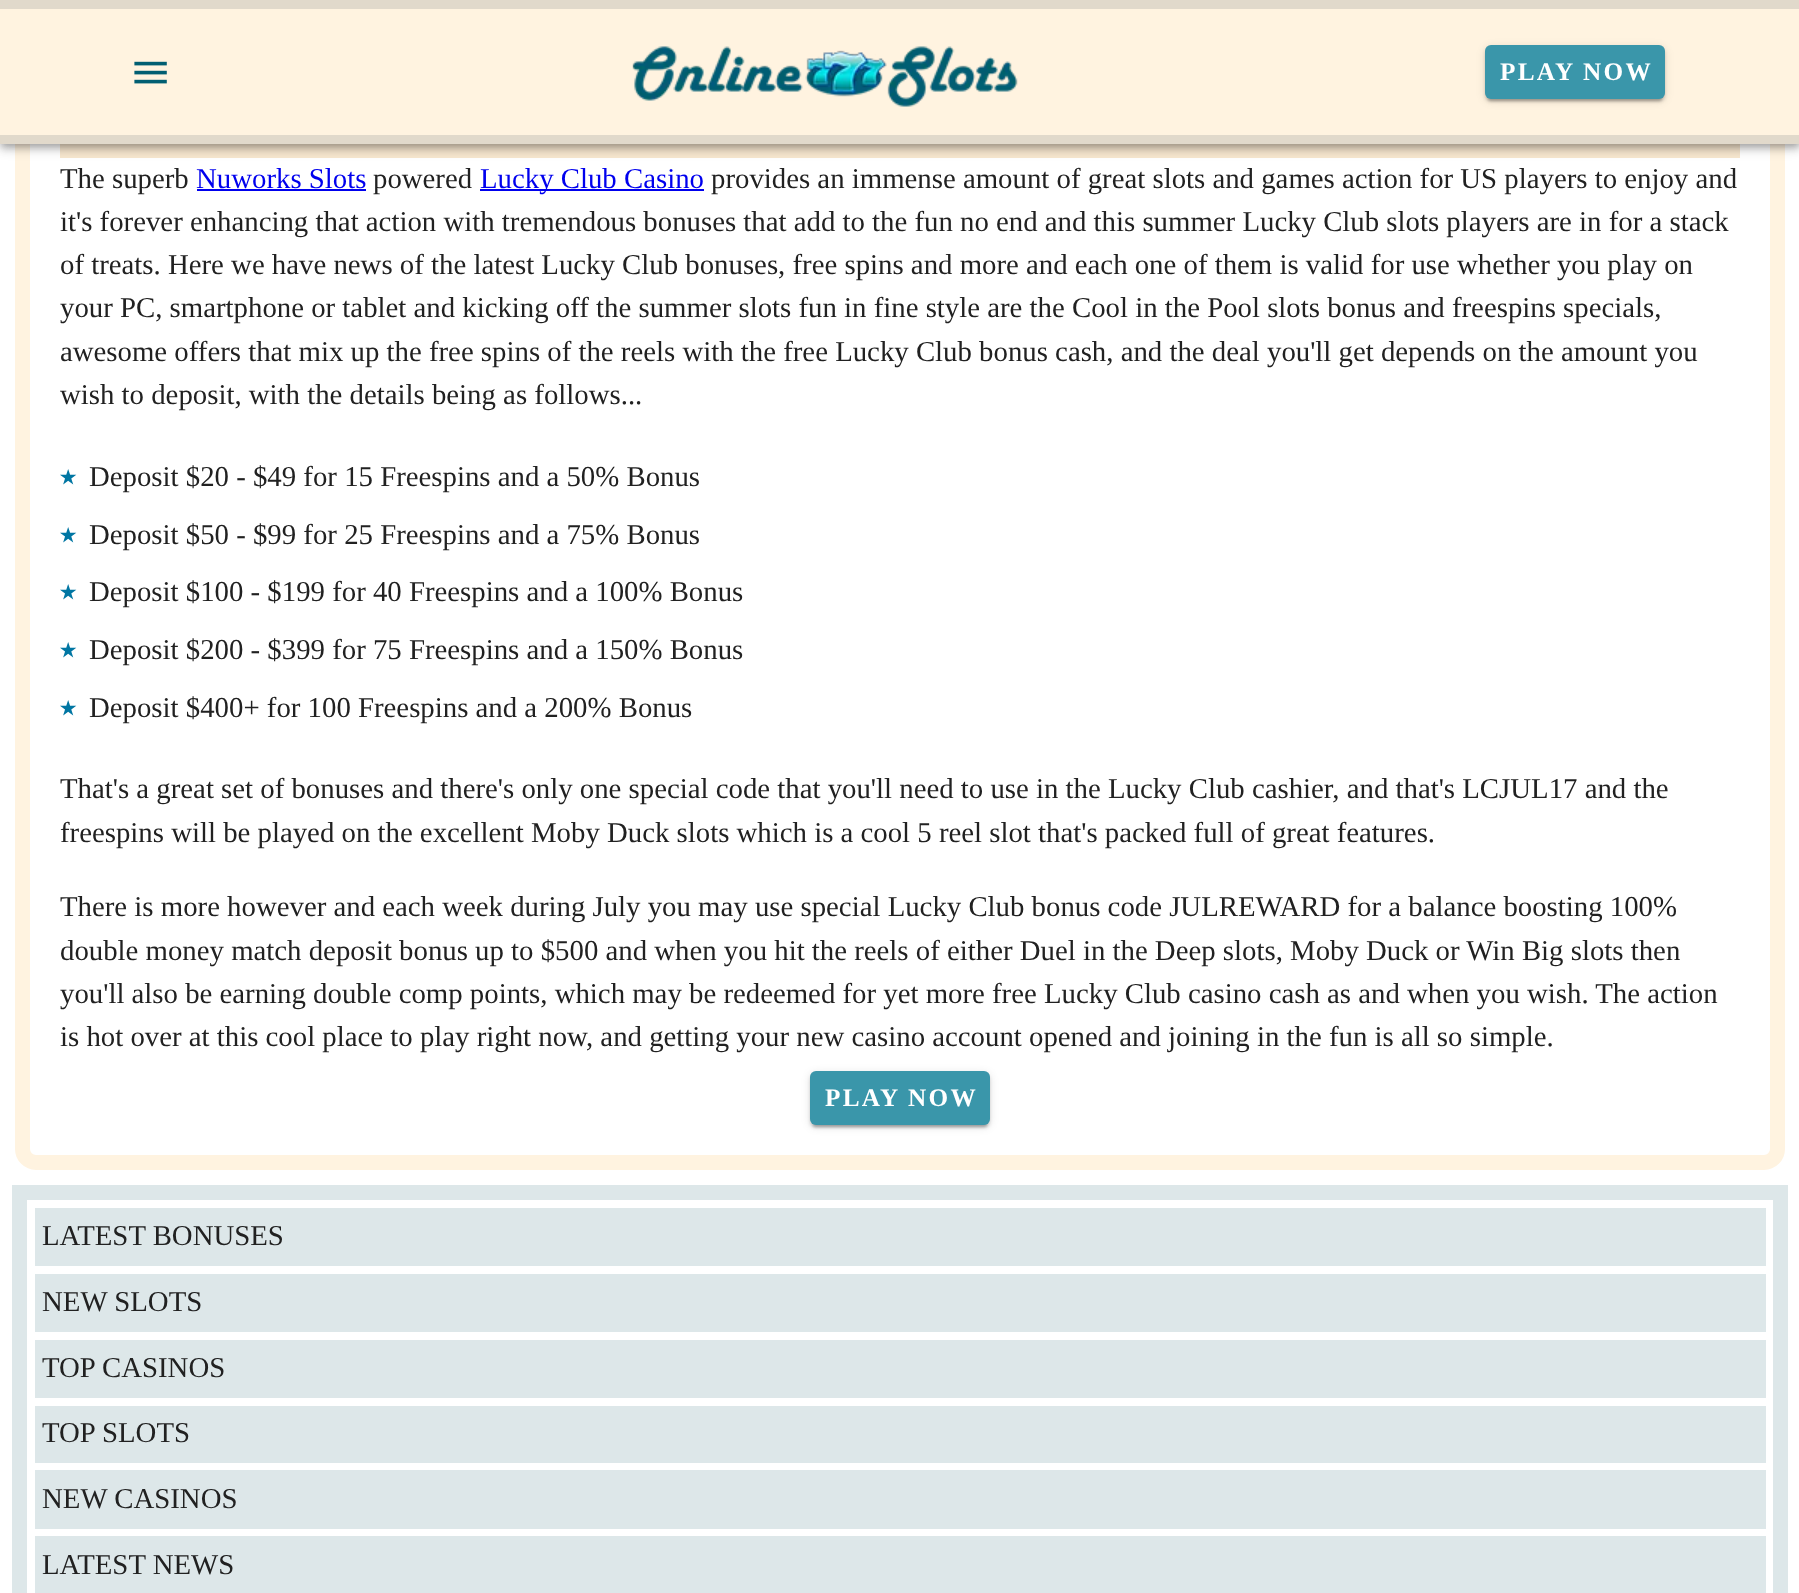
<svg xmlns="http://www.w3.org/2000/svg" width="1799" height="1593">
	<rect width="100%" height="100%" fill="#FFFFFF" />
	<rect x="22.5" y="40.5" width="1755" height="1122" rx="13.5" fill="none" stroke="#FFF3E0" stroke-width="15" />
	<rect x="60" y="144" width="1680" height="14" fill="#F7E7CF" />
	<rect x="0" y="2" width="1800" height="144" fill="#000000" fill-opacity="0.12" filter="blur(7.5px)" />
	<rect x="0" y="6" width="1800" height="144" fill="#000000" fill-opacity="0.14" filter="blur(4px)" />
	<rect x="2" y="5" width="1797" height="141" fill="#000000" fill-opacity="0.2" filter="blur(3px)" />
	<rect x="0" y="9" width="1799" height="126" fill="#FFF3E0" />
	<rect x="0" y="0" width="1799" height="9" fill="#E1D9CB" />
	<rect x="0" y="135" width="1799" height="9" fill="#E1D9CB" />
	<image x="134" y="61" width="33" height="23" href="assets/img1.png" />
	<image x="632" y="46" width="386" height="61" href="assets/img2.png" />
	<rect x="1485" y="47" width="180" height="54" rx="6" fill="#000000" fill-opacity="0.12" filter="blur(4px)" />
	<rect x="1485" y="48" width="180" height="54" rx="6" fill="#000000" fill-opacity="0.14" filter="blur(1.5px)" />
	<rect x="1488" y="53" width="174" height="48" rx="3" fill="#000000" fill-opacity="0.2" filter="blur(1px)" />
	<rect x="1485" y="45" width="180" height="54" rx="6" fill="#3A96AA" />
	<text x="1500" y="80" font-family="Liberation Serif" font-size="25.25" font-weight="700" letter-spacing="2.25" fill="#FFFFFF">PLAY NOW</text>
	<text x="60" y="188" font-family="Liberation Serif" font-size="28.8" fill="#212121">The superb</text>
	<text x="196" y="188" font-family="Liberation Serif" font-size="28.8" fill="#0000EE">Nuworks Slots</text>
	<rect x="197" y="189" width="169" height="2" fill="#0000EE" />
	<text x="373" y="188" font-family="Liberation Serif" font-size="28.8" fill="#212121">powered</text>
	<rect x="480" y="189" width="224" height="2" fill="#0000EE" />
	<text x="480" y="188" font-family="Liberation Serif" font-size="28.8" fill="#0000EE">Lucky Club Casino</text>
	<g font-family="Liberation Serif" font-size="28.8" fill="#212121">
		<text x="711" y="188">provides an immense amount of great slots and games action for US players to enjoy and</text>
		<text x="60" y="231">it's forever enhancing that action with tremendous bonuses that add to the fun no end and this summer Lucky Club slots players are in for a stack</text>
		<text x="60" y="274">of treats. Here we have news of the latest Lucky Club bonuses, free spins and more and each one of them is valid for use whether you play on</text>
		<text x="60" y="317">your PC, smartphone or tablet and kicking off the summer slots fun in fine style are the Cool in the Pool slots bonus and freespins specials,</text>
		<text x="60" y="361">awesome offers that mix up the free spins of the reels with the free Lucky Club bonus cash, and the deal you'll get depends on the amount you</text>
		<text x="60" y="404">wish to deposit, with the details being as follows...</text>
	</g>
	<text x="60" y="486" font-family="FreeSans" font-size="28.8" font-weight="700" fill="#0076A3">⭑</text>
	<text x="89" y="486" font-family="Liberation Serif" font-size="28.8" fill="#212121">Deposit $20 - $49 for 15 Freespins and a 50% Bonus</text>
	<text x="60" y="544" font-family="FreeSans" font-size="28.8" font-weight="700" fill="#0076A3">⭑</text>
	<text x="89" y="544" font-family="Liberation Serif" font-size="28.8" fill="#212121">Deposit $50 - $99 for 25 Freespins and a 75% Bonus</text>
	<text x="60" y="601" font-family="FreeSans" font-size="28.8" font-weight="700" fill="#0076A3">⭑</text>
	<text x="89" y="601" font-family="Liberation Serif" font-size="28.8" fill="#212121">Deposit $100 - $199 for 40 Freespins and a 100% Bonus</text>
	<text x="60" y="659" font-family="FreeSans" font-size="28.8" font-weight="700" fill="#0076A3">⭑</text>
	<text x="89" y="659" font-family="Liberation Serif" font-size="28.8" fill="#212121">Deposit $200 - $399 for 75 Freespins and a 150% Bonus</text>
	<text x="60" y="717" font-family="FreeSans" font-size="28.8" font-weight="700" fill="#0076A3">⭑</text>
	<g font-family="Liberation Serif" font-size="28.8" fill="#212121">
		<text x="89" y="717">Deposit $400+ for 100 Freespins and a 200% Bonus</text>
		<text x="60" y="798">That's a great set of bonuses and there's only one special code that you'll need to use in the Lucky Club cashier, and that's LCJUL17 and the</text>
		<text x="60" y="842">freespins will be played on the excellent Moby Duck slots which is a cool 5 reel slot that's packed full of great features.</text>
		<text x="60" y="916">There is more however and each week during July you may use special Lucky Club bonus code JULREWARD for a balance boosting 100%</text>
		<text x="60" y="960">double money match deposit bonus up to $500 and when you hit the reels of either Duel in the Deep slots, Moby Duck or Win Big slots then</text>
		<text x="60" y="1003">you'll also be earning double comp points, which may be redeemed for yet more free Lucky Club casino cash as and when you wish. The action</text>
		<text x="60" y="1046">is hot over at this cool place to play right now, and getting your new casino account opened and joining in the fun is all so simple.</text>
	</g>
	<rect x="810" y="1073" width="180" height="54" rx="6" fill="#000000" fill-opacity="0.12" filter="blur(4px)" />
	<rect x="810" y="1074" width="180" height="54" rx="6" fill="#000000" fill-opacity="0.14" filter="blur(1.5px)" />
	<rect x="813" y="1079" width="174" height="48" rx="3" fill="#000000" fill-opacity="0.2" filter="blur(1px)" />
	<rect x="810" y="1071" width="180" height="54" rx="6" fill="#3A96AA" />
	<text x="825" y="1106" font-family="Liberation Serif" font-size="25.25" font-weight="700" letter-spacing="2.25" fill="#FFFFFF">PLAY NOW</text>
	<path d="M19.5 1192.5H1780.5V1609.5H19.5Z" fill="none" stroke="#DDE7E9" stroke-width="15" />
	<rect x="35" y="1208" width="1731" height="58" fill="#DDE7E9" />
	<text x="42" y="1245" font-family="Liberation Serif" font-size="28.8" fill="#212121">LATEST BONUSES</text>
	<rect x="35" y="1274" width="1731" height="58" fill="#DDE7E9" />
	<text x="42" y="1311" font-family="Liberation Serif" font-size="28.8" fill="#212121">NEW SLOTS</text>
	<rect x="35" y="1340" width="1731" height="58" fill="#DDE7E9" />
	<text x="42" y="1377" font-family="Liberation Serif" font-size="28.8" fill="#212121">TOP CASINOS</text>
	<rect x="35" y="1406" width="1731" height="57" fill="#DDE7E9" />
	<text x="42" y="1442" font-family="Liberation Serif" font-size="28.8" fill="#212121">TOP SLOTS</text>
	<rect x="35" y="1470" width="1731" height="59" fill="#DDE7E9" />
	<text x="42" y="1508" font-family="Liberation Serif" font-size="28.8" fill="#212121">NEW CASINOS</text>
	<rect x="35" y="1536" width="1731" height="57" fill="#DDE7E9" />
	<text x="42" y="1574" font-family="Liberation Serif" font-size="28.8" fill="#212121">LATEST NEWS</text>
</svg>
